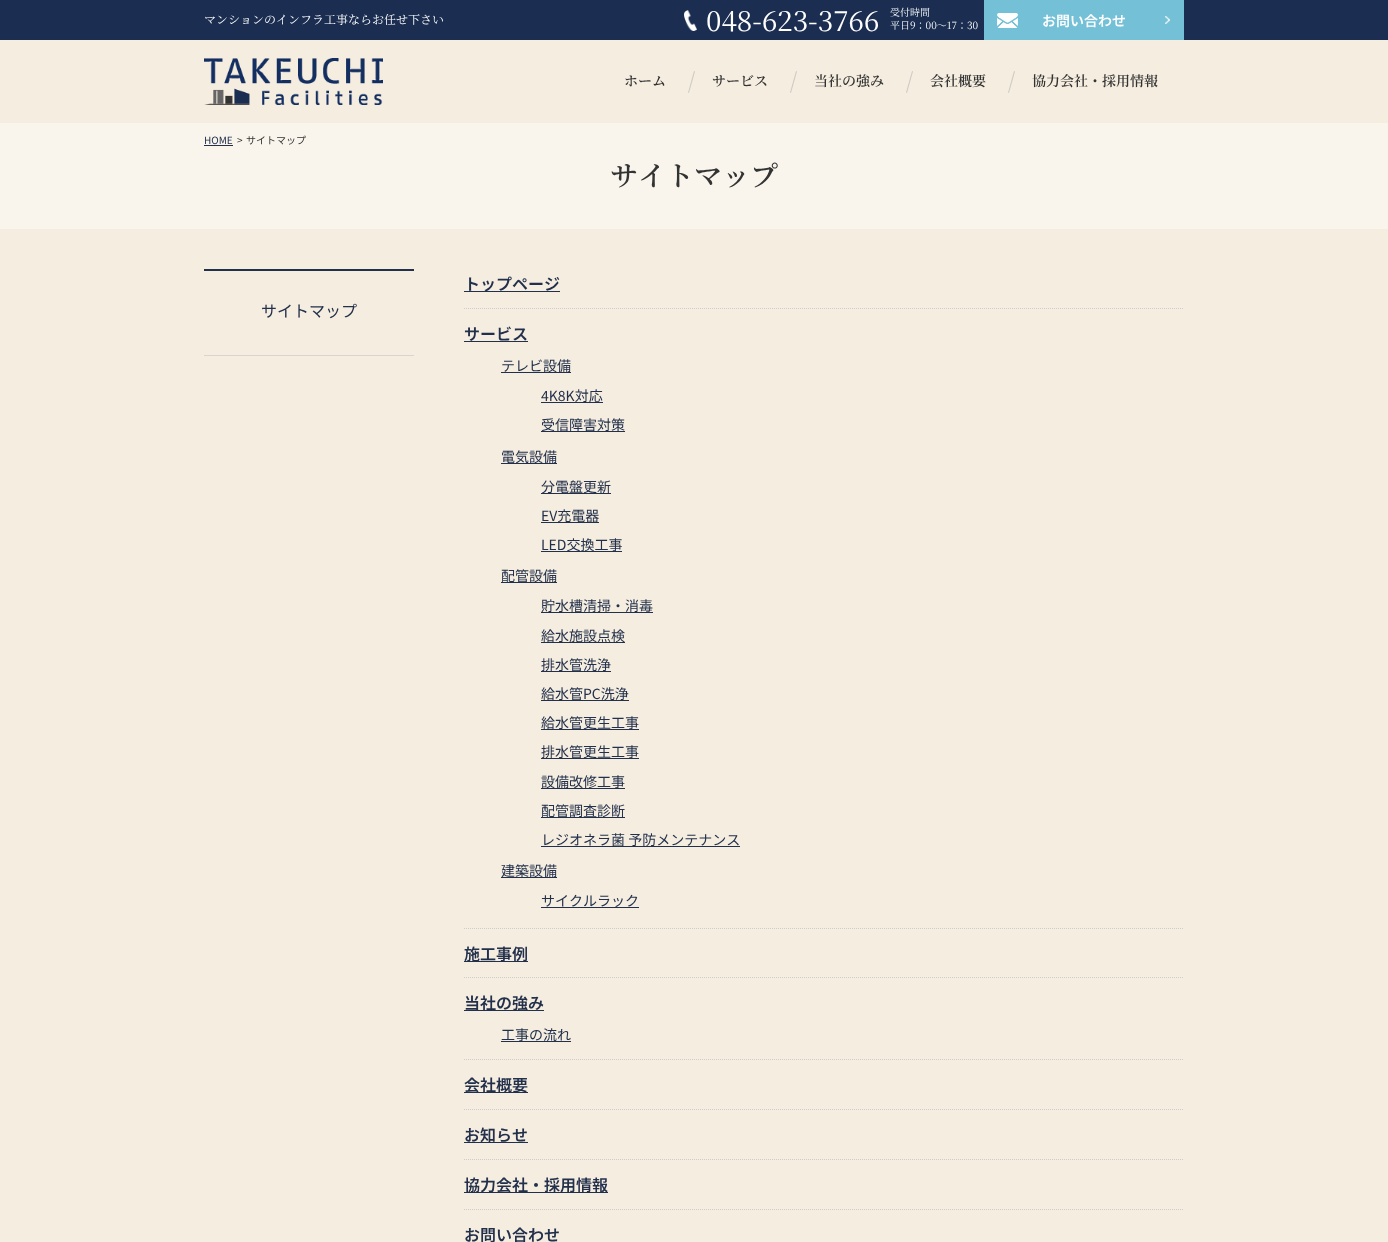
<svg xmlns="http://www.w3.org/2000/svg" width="1388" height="1242">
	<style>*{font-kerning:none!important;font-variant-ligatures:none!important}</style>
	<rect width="100%" height="100%" fill="#F5EDDF" />
	<rect x="0" y="0" width="1388" height="40" fill="#1B2E51" />
	<text x="204" y="24" font-family="Noto Serif JP" font-size="12" fill="#FFFFFF">マンションのインフラ工事ならお任せ下さい</text>
	<image x="684" y="10" width="13" height="21" href="assets/img1.png" />
	<text x="706" y="31" font-family="Noto Serif JP" font-size="28" fill="#FFFFFF">048-623-3766</text>
	<g font-family="Noto Serif JP" font-size="10" fill="#FFFFFF">
		<text x="890" y="16">受付時間</text>
		<text x="890" y="29">平日9：00～17：30</text>
	</g>
	<rect x="984" y="0" width="200" height="40" fill="#74C0D6" />
	<image x="997" y="13" width="173" height="15" href="assets/img2.png" />
	<text x="1042" y="26" font-family="Noto Sans JP" font-size="14" font-weight="600" fill="#FFFFFF">お問い合わせ</text>
	<image x="204" y="58" width="179" height="47" href="assets/img3.png" />
	<text x="624" y="86" font-family="Noto Serif JP" font-size="14" font-weight="600" fill="#333333">ホーム</text>
	<path d="M694 71L695 71.5L689 93L688 92.5Z" fill="#CFCBC4" />
	<text x="712" y="86" font-family="Noto Serif JP" font-size="14" font-weight="600" fill="#333333">サービス</text>
	<path d="M796 71L797 71.5L791 93L790 92.5Z" fill="#CFCBC4" />
	<text x="814" y="86" font-family="Noto Serif JP" font-size="14" font-weight="600" fill="#333333">当社の強み</text>
	<path d="M912 71L913 71.5L907 93L906 92.5Z" fill="#CFCBC4" />
	<text x="930" y="86" font-family="Noto Serif JP" font-size="14" font-weight="600" fill="#333333">会社概要</text>
	<path d="M1014 71L1015 71.5L1009 93L1008 92.5Z" fill="#CFCBC4" />
	<text x="1032" y="86" font-family="Noto Serif JP" font-size="14" font-weight="600" fill="#333333">協力会社・採用情報</text>
	<rect x="0" y="123" width="1388" height="106" fill="#F9F5ED" />
	<text x="204" y="144" font-family="Noto Sans JP" font-size="10" fill="#22304C">HOME</text>
	<rect x="204" y="145" width="29" height="1" fill="#22304C" />
	<g font-family="Noto Sans JP" font-size="10" fill="#333333">
		<text x="237" y="144">&gt;</text>
		<text x="246" y="144">サイトマップ</text>
	</g>
	<text x="610" y="186" font-family="Noto Serif JP" font-size="28" font-weight="600" fill="#333333">サイトマップ</text>
	<rect x="204" y="269" width="210" height="2" fill="#22304C" />
	<rect x="204" y="355" width="210" height="1" fill="#D9D5CE" />
	<text x="261" y="317" font-family="Noto Sans JP" font-size="16" fill="#22304C">サイトマップ</text>
	<path d="M464 308.5H1184" fill="none" stroke="#CCCCCC" stroke-dasharray="1 1" />
	<rect x="464" y="291" width="96" height="1" fill="#22304C" />
	<text x="464" y="290" font-family="Noto Sans JP" font-size="16" font-weight="600" fill="#22304C">トップページ</text>
	<path d="M464 928.5H1184" fill="none" stroke="#CCCCCC" stroke-dasharray="1 1" />
	<text x="464" y="340" font-family="Noto Sans JP" font-size="16" font-weight="600" fill="#22304C">サービス</text>
	<rect x="464" y="341" width="64" height="1" fill="#22304C" />
	<rect x="501" y="372" width="70" height="1" fill="#22304C" />
	<text x="501" y="371" font-family="Noto Sans JP" font-size="14" fill="#22304C">テレビ設備</text>
	<rect x="541" y="402" width="62" height="1" fill="#22304C" />
	<text x="541" y="401" font-family="Noto Sans JP" font-size="14" fill="#22304C">4K8K対応</text>
	<rect x="541" y="431" width="84" height="1" fill="#22304C" />
	<text x="541" y="430" font-family="Noto Sans JP" font-size="14" fill="#22304C">受信障害対策</text>
	<rect x="501" y="463" width="56" height="1" fill="#22304C" />
	<text x="501" y="462" font-family="Noto Sans JP" font-size="14" fill="#22304C">電気設備</text>
	<rect x="541" y="493" width="70" height="1" fill="#22304C" />
	<text x="541" y="492" font-family="Noto Sans JP" font-size="14" fill="#22304C">分電盤更新</text>
	<rect x="541" y="522" width="58" height="1" fill="#22304C" />
	<text x="541" y="521" font-family="Noto Sans JP" font-size="14" fill="#22304C">EV充電器</text>
	<rect x="541" y="551" width="81" height="1" fill="#22304C" />
	<text x="541" y="550" font-family="Noto Sans JP" font-size="14" fill="#22304C">LED交換工事</text>
	<rect x="501" y="582" width="56" height="1" fill="#22304C" />
	<text x="501" y="581" font-family="Noto Sans JP" font-size="14" fill="#22304C">配管設備</text>
	<rect x="541" y="612" width="112" height="1" fill="#22304C" />
	<text x="541" y="611" font-family="Noto Sans JP" font-size="14" fill="#22304C">貯水槽清掃・消毒</text>
	<rect x="541" y="642" width="84" height="1" fill="#22304C" />
	<text x="541" y="641" font-family="Noto Sans JP" font-size="14" fill="#22304C">給水施設点検</text>
	<rect x="541" y="671" width="70" height="1" fill="#22304C" />
	<text x="541" y="670" font-family="Noto Sans JP" font-size="14" fill="#22304C">排水管洗浄</text>
	<rect x="541" y="700" width="88" height="1" fill="#22304C" />
	<text x="541" y="699" font-family="Noto Sans JP" font-size="14" fill="#22304C">給水管PC洗浄</text>
	<rect x="541" y="729" width="98" height="1" fill="#22304C" />
	<text x="541" y="728" font-family="Noto Sans JP" font-size="14" fill="#22304C">給水管更生工事</text>
	<rect x="541" y="758" width="98" height="1" fill="#22304C" />
	<text x="541" y="757" font-family="Noto Sans JP" font-size="14" fill="#22304C">排水管更生工事</text>
	<rect x="541" y="788" width="84" height="1" fill="#22304C" />
	<text x="541" y="787" font-family="Noto Sans JP" font-size="14" fill="#22304C">設備改修工事</text>
	<rect x="541" y="817" width="84" height="1" fill="#22304C" />
	<text x="541" y="816" font-family="Noto Sans JP" font-size="14" fill="#22304C">配管調査診断</text>
	<rect x="541" y="846" width="199" height="1" fill="#22304C" />
	<text x="541" y="845" font-family="Noto Sans JP" font-size="14" fill="#22304C">レジオネラ菌 予防メンテナンス</text>
	<rect x="501" y="877" width="56" height="1" fill="#22304C" />
	<text x="501" y="876" font-family="Noto Sans JP" font-size="14" fill="#22304C">建築設備</text>
	<rect x="541" y="907" width="98" height="1" fill="#22304C" />
	<text x="541" y="906" font-family="Noto Sans JP" font-size="14" fill="#22304C">サイクルラック</text>
	<path d="M464 977.5H1184" fill="none" stroke="#CCCCCC" stroke-dasharray="1 1" />
	<rect x="464" y="961" width="64" height="1" fill="#22304C" />
	<text x="464" y="960" font-family="Noto Sans JP" font-size="16" font-weight="600" fill="#22304C">施工事例</text>
	<path d="M464 1059.5H1184" fill="none" stroke="#CCCCCC" stroke-dasharray="1 1" />
	<rect x="464" y="1010" width="80" height="1" fill="#22304C" />
	<text x="464" y="1009" font-family="Noto Sans JP" font-size="16" font-weight="600" fill="#22304C">当社の強み</text>
	<rect x="501" y="1041" width="70" height="1" fill="#22304C" />
	<text x="501" y="1040" font-family="Noto Sans JP" font-size="14" fill="#22304C">工事の流れ</text>
	<path d="M464 1109.5H1184" fill="none" stroke="#CCCCCC" stroke-dasharray="1 1" />
	<rect x="464" y="1092" width="64" height="1" fill="#22304C" />
	<text x="464" y="1091" font-family="Noto Sans JP" font-size="16" font-weight="600" fill="#22304C">会社概要</text>
	<path d="M464 1159.5H1184" fill="none" stroke="#CCCCCC" stroke-dasharray="1 1" />
	<rect x="464" y="1142" width="64" height="1" fill="#22304C" />
	<text x="464" y="1141" font-family="Noto Sans JP" font-size="16" font-weight="600" fill="#22304C">お知らせ</text>
	<path d="M464 1209.5H1184" fill="none" stroke="#CCCCCC" stroke-dasharray="1 1" />
	<rect x="464" y="1192" width="144" height="1" fill="#22304C" />
	<g font-family="Noto Sans JP" font-size="16" font-weight="600" fill="#22304C">
		<text x="464" y="1191">協力会社・採用情報</text>
		<text x="464" y="1241">お問い合わせ</text>
	</g>
</svg>
